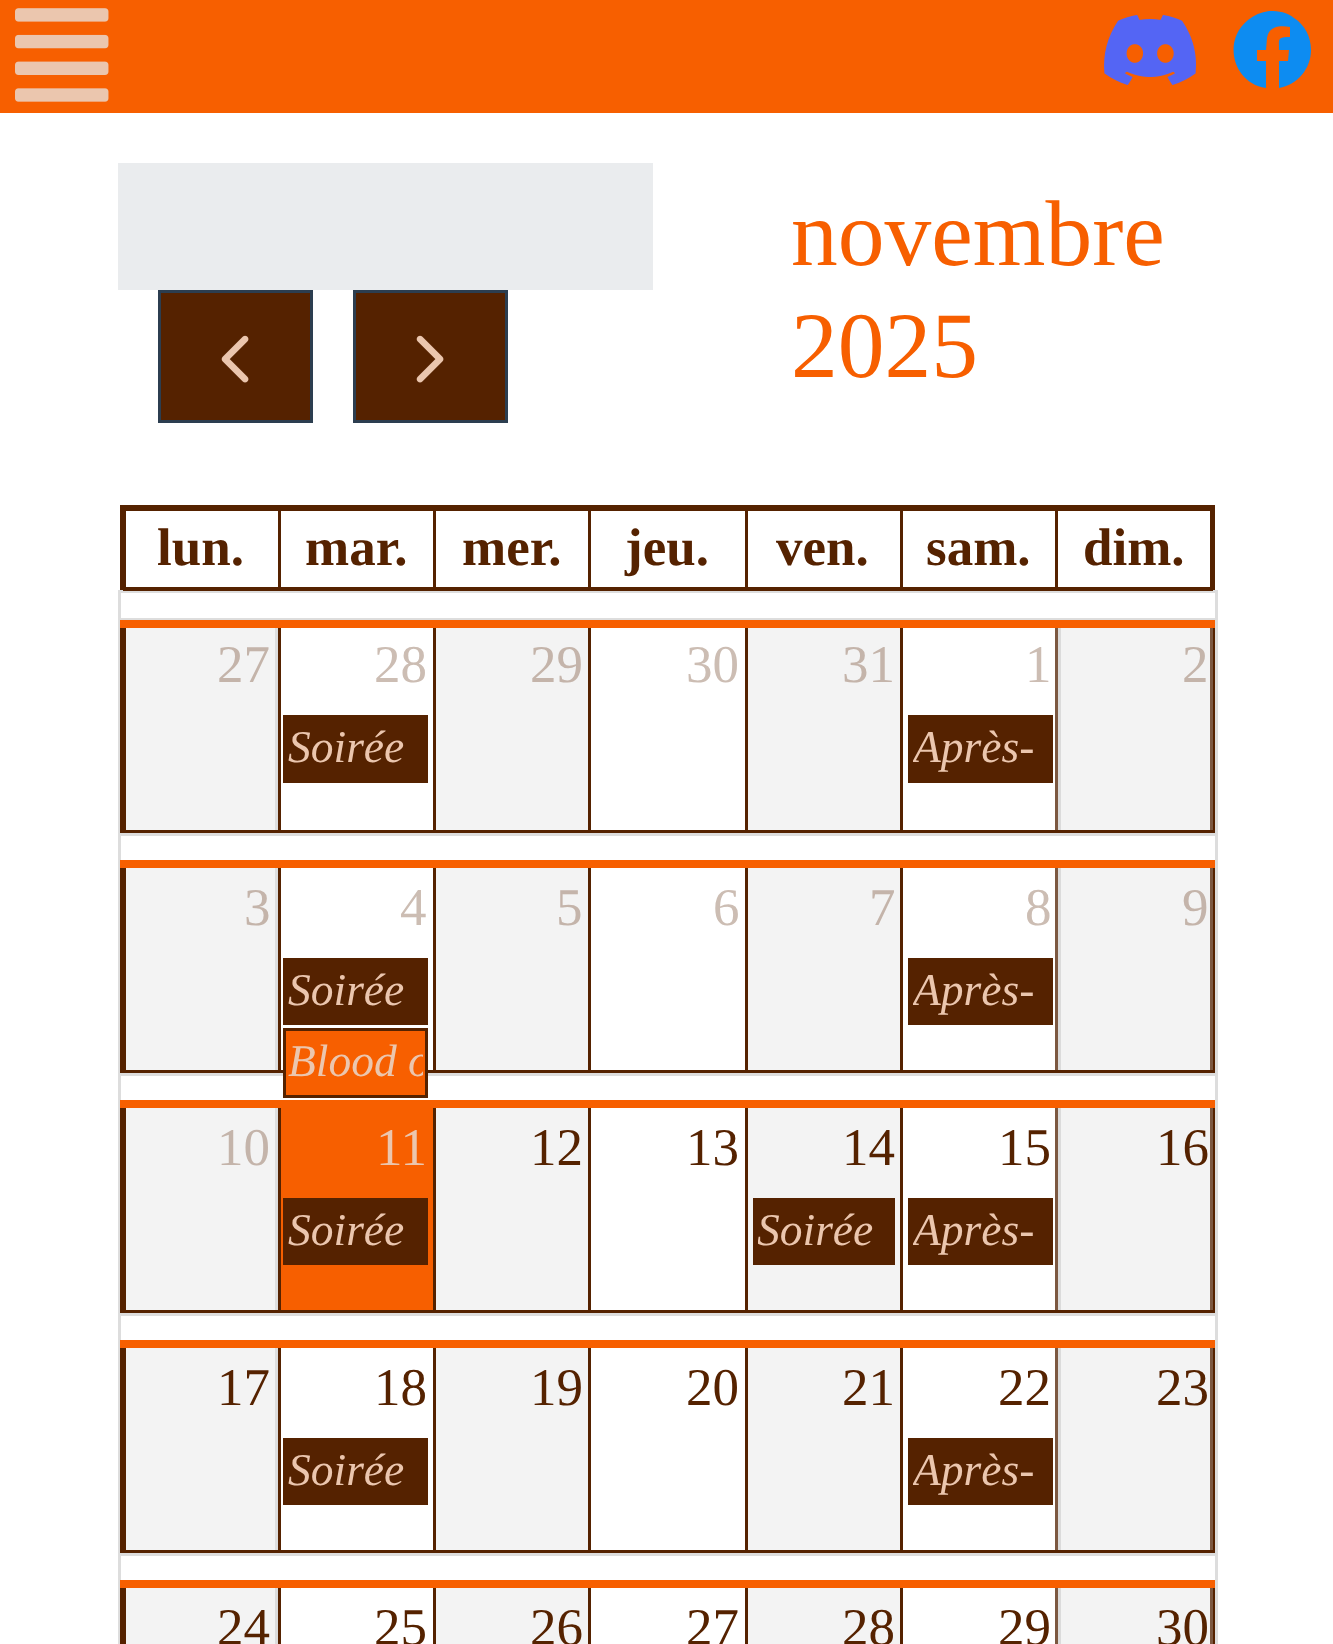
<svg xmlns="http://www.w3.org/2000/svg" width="1333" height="1644">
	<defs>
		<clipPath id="clip1"><rect x="913" y="718" width="135" height="62" /></clipPath>
		<clipPath id="clip2"><rect x="913" y="960" width="135" height="63" /></clipPath>
		<clipPath id="clip3"><rect x="288" y="1030" width="135" height="65" /></clipPath>
		<clipPath id="clip4"><rect x="758" y="1200" width="132" height="63" /></clipPath>
		<clipPath id="clip5"><rect x="913" y="1200" width="135" height="63" /></clipPath>
		<clipPath id="clip6"><rect x="913" y="1440" width="135" height="63" /></clipPath>
	</defs>
	<rect width="100%" height="100%" fill="#FFFFFF" />
	<rect x="748" y="1588" width="152" height="56" fill="#F3F3F3" />
	<rect x="436" y="1588" width="152" height="56" fill="#F3F3F3" />
	<rect x="126" y="1588" width="149" height="56" fill="#F3F3F3" />
	<rect x="748" y="1348" width="152" height="202" fill="#F3F3F3" />
	<rect x="436" y="1348" width="152" height="202" fill="#F3F3F3" />
	<rect x="748" y="1108" width="152" height="202" fill="#F3F3F3" />
	<rect x="436" y="1108" width="152" height="202" fill="#F3F3F3" />
	<rect x="748" y="868" width="152" height="202" fill="#F3F3F3" />
	<rect x="436" y="868" width="152" height="202" fill="#F3F3F3" />
	<rect x="748" y="628" width="152" height="202" fill="#F3F3F3" />
	<rect x="436" y="628" width="152" height="202" fill="#F3F3F3" />
	<rect x="0" y="0" width="1333" height="113" fill="#F75F00" />
	<image x="15" y="8" width="94" height="94" href="assets/img1.png" />
	<image x="1104" y="14" width="92" height="71" href="assets/img2.png" />
	<path d="M1311 50C1311 69 1297 85 1279 88V61H1288L1289 50H1279C1279 39 1277 37 1290 37V27C1280 25 1269 26 1267 38L1266 50H1257V61H1266V88C1233 83 1222 41 1248 20C1254 15 1261 12 1269 11C1278 11 1287 12 1294 18C1305 25 1311 37 1311 50Z" fill="#0D8CF1" />
	<rect x="118" y="163" width="535" height="127" fill="#EAECEE" />
	<rect x="159.5" y="291.5" width="152" height="130" fill="#552200" stroke="#2C3E50" stroke-width="3" />
	<image x="221" y="335" width="28" height="48" href="assets/img3.png" />
	<rect x="354.5" y="291.5" width="152" height="130" fill="#552200" stroke="#2C3E50" stroke-width="3" />
	<image x="416" y="335" width="28" height="48" href="assets/img4.png" />
	<g font-family="Liberation Serif" font-size="93.5" fill="#F75F00">
		<text x="791" y="265">novembre</text>
		<text x="791" y="377">2025</text>
	</g>
	<rect x="121.5" y="506.5" width="1092" height="82" fill="none" stroke="#552200" stroke-width="3" />
	<rect x="1055" y="508" width="158" height="3" fill="#552200" />
	<rect x="1055" y="508" width="3" height="82" fill="#552200" />
	<rect x="900" y="508" width="158" height="3" fill="#552200" />
	<rect x="900" y="508" width="3" height="82" fill="#552200" />
	<rect x="745" y="508" width="158" height="3" fill="#552200" />
	<rect x="745" y="508" width="3" height="82" fill="#552200" />
	<rect x="588" y="508" width="160" height="3" fill="#552200" />
	<rect x="588" y="508" width="3" height="82" fill="#552200" />
	<rect x="433" y="508" width="157" height="3" fill="#552200" />
	<rect x="433" y="508" width="3" height="82" fill="#552200" />
	<rect x="278" y="508" width="157" height="3" fill="#552200" />
	<rect x="278" y="508" width="3" height="82" fill="#552200" />
	<rect x="123" y="508" width="157" height="3" fill="#552200" />
	<rect x="123" y="508" width="3" height="82" fill="#552200" />
	<g font-family="Liberation Serif" font-size="53" font-weight="700" fill="#552200">
		<text x="157" y="565">lun.</text>
		<text x="305" y="565">mar.</text>
		<text x="462" y="565">mer.</text>
		<text x="625" y="565">jeu.</text>
		<text x="776" y="565">ven.</text>
		<text x="926" y="565">sam.</text>
	</g>
	<rect x="1210" y="508" width="2" height="82" fill="#552200" />
	<rect x="118" y="590" width="1100" height="3" fill="#DDDDDD" />
	<rect x="123" y="590" width="1090" height="1" fill="#552200" />
	<text x="1083" y="565" font-family="Liberation Serif" font-size="53" font-weight="700" fill="#552200">dim.</text>
	<rect x="1215" y="590" width="3" height="1054" fill="#DDDDDD" />
	<rect x="118" y="590" width="3" height="1054" fill="#DDDDDD" />
	<rect x="1058" y="618" width="157" height="2" fill="#DDDDDD" />
	<rect x="1058" y="833" width="157" height="3" fill="#DDDDDD" />
	<rect x="1058" y="618" width="3" height="217" fill="#DDDDDD" />
	<rect x="120" y="618" width="940" height="2" fill="#DDDDDD" />
	<rect x="275" y="833" width="785" height="3" fill="#DDDDDD" />
	<rect x="275" y="628" width="3" height="207" fill="#DDDDDD" />
	<rect x="120" y="833" width="158" height="3" fill="#DDDDDD" />
	<rect x="121" y="618" width="2" height="217" fill="#DDDDDD" />
	<rect x="435" y="618" width="1" height="217" fill="#DDDDDD" />
	<rect x="590" y="618" width="1" height="217" fill="#DDDDDD" />
	<rect x="121.5" y="621.5" width="1092" height="210" fill="none" stroke="#552200" stroke-width="3" />
	<rect x="126" y="628" width="149" height="202" fill="#D7D7D7" fill-opacity="0.3" />
	<rect x="900" y="620" width="3" height="213" fill="#552200" />
	<rect x="1210" y="620" width="2" height="213" fill="#552200" />
	<rect x="1055" y="620" width="3" height="213" fill="#552200" />
	<rect x="123" y="620" width="3" height="213" fill="#552200" />
	<rect x="278" y="620" width="3" height="213" fill="#552200" />
	<rect x="433" y="620" width="3" height="213" fill="#552200" />
	<rect x="588" y="620" width="3" height="213" fill="#552200" />
	<rect x="745" y="620" width="3" height="213" fill="#552200" />
	<rect x="1055" y="628" width="158" height="202" fill="#D7D7D7" fill-opacity="0.3" />
	<rect x="120" y="620" width="1095" height="8" fill="#F75F00" />
	<text x="217" y="682" font-family="Liberation Serif" font-size="53" fill="#C4B4AA">27</text>
	<text x="374" y="682" font-family="Liberation Serif" font-size="53" fill="#CCBDB3">28</text>
	<text x="530" y="682" font-family="Liberation Serif" font-size="53" fill="#C4B4AA">29</text>
	<text x="686" y="682" font-family="Liberation Serif" font-size="53" fill="#CCBDB3">30</text>
	<text x="842" y="682" font-family="Liberation Serif" font-size="53" fill="#C4B4AA">31</text>
	<text x="1025" y="682" font-family="Liberation Serif" font-size="53" fill="#CCBDB3">1</text>
	<text x="1182" y="682" font-family="Liberation Serif" font-size="53" fill="#C4B4AA">2</text>
	<rect x="283" y="715" width="145" height="68" fill="#552200" />
	<text x="288" y="762" font-family="Liberation Serif" font-size="45.5" font-style="italic" fill="#EBC6AE">Soirée</text>
	<rect x="908" y="715" width="145" height="68" fill="#552200" />
	<g clip-path="url(#clip1)">
		<text x="913" y="762" font-family="Liberation Serif" font-size="45.5" font-style="italic" fill="#EBC6AE">Après-</text>
	</g>
	<rect x="1058" y="1073" width="157" height="3" fill="#DDDDDD" />
	<rect x="1058" y="860" width="3" height="215" fill="#DDDDDD" />
	<rect x="275" y="1073" width="785" height="3" fill="#DDDDDD" />
	<rect x="275" y="860" width="3" height="215" fill="#DDDDDD" />
	<rect x="120" y="1073" width="158" height="3" fill="#DDDDDD" />
	<rect x="121.5" y="861.5" width="1092" height="210" fill="none" stroke="#552200" stroke-width="3" />
	<rect x="126" y="868" width="149" height="202" fill="#D7D7D7" fill-opacity="0.3" />
	<rect x="900" y="863" width="3" height="210" fill="#552200" />
	<rect x="1210" y="863" width="2" height="210" fill="#552200" />
	<rect x="1055" y="863" width="3" height="210" fill="#552200" />
	<rect x="123" y="863" width="3" height="210" fill="#552200" />
	<rect x="278" y="863" width="3" height="210" fill="#552200" />
	<rect x="433" y="863" width="3" height="210" fill="#552200" />
	<rect x="588" y="863" width="3" height="210" fill="#552200" />
	<rect x="745" y="863" width="3" height="210" fill="#552200" />
	<rect x="1055" y="868" width="158" height="202" fill="#D7D7D7" fill-opacity="0.3" />
	<rect x="120" y="860" width="1095" height="8" fill="#F75F00" />
	<text x="244" y="925" font-family="Liberation Serif" font-size="53" fill="#C4B4AA">3</text>
	<text x="400" y="925" font-family="Liberation Serif" font-size="53" fill="#CCBDB3">4</text>
	<text x="556" y="925" font-family="Liberation Serif" font-size="53" fill="#C4B4AA">5</text>
	<text x="713" y="925" font-family="Liberation Serif" font-size="53" fill="#CCBDB3">6</text>
	<text x="869" y="925" font-family="Liberation Serif" font-size="53" fill="#C4B4AA">7</text>
	<text x="1025" y="925" font-family="Liberation Serif" font-size="53" fill="#CCBDB3">8</text>
	<text x="1182" y="925" font-family="Liberation Serif" font-size="53" fill="#C4B4AA">9</text>
	<rect x="283" y="958" width="145" height="67" fill="#552200" />
	<text x="288" y="1005" font-family="Liberation Serif" font-size="45.5" font-style="italic" fill="#EBC6AE">Soirée</text>
	<rect x="908" y="958" width="145" height="67" fill="#552200" />
	<g clip-path="url(#clip2)">
		<text x="913" y="1005" font-family="Liberation Serif" font-size="45.5" font-style="italic" fill="#EBC6AE">Après-</text>
	</g>
	<rect x="284.5" y="1029.5" width="142" height="67" fill="#F75F00" stroke="#552200" stroke-width="3" />
	<g clip-path="url(#clip3)">
		<text x="288" y="1076" font-family="Liberation Serif" font-size="45.5" font-style="italic" fill="#EBC6AE">Blood o</text>
	</g>
	<rect x="1058" y="1313" width="157" height="3" fill="#DDDDDD" />
	<rect x="1058" y="1100" width="3" height="215" fill="#DDDDDD" />
	<rect x="275" y="1313" width="785" height="3" fill="#DDDDDD" />
	<rect x="275" y="1100" width="3" height="215" fill="#DDDDDD" />
	<rect x="120" y="1313" width="158" height="3" fill="#DDDDDD" />
	<rect x="281" y="1108" width="152" height="202" fill="#F75F00" />
	<rect x="121.5" y="1101.5" width="1092" height="210" fill="none" stroke="#552200" stroke-width="3" />
	<rect x="126" y="1108" width="149" height="202" fill="#D7D7D7" fill-opacity="0.3" />
	<rect x="900" y="1103" width="3" height="210" fill="#552200" />
	<rect x="1210" y="1103" width="2" height="210" fill="#552200" />
	<rect x="1055" y="1103" width="3" height="210" fill="#552200" />
	<rect x="123" y="1103" width="3" height="210" fill="#552200" />
	<rect x="278" y="1103" width="3" height="210" fill="#552200" />
	<rect x="433" y="1103" width="3" height="210" fill="#552200" />
	<rect x="588" y="1103" width="3" height="210" fill="#552200" />
	<rect x="745" y="1103" width="3" height="210" fill="#552200" />
	<rect x="1055" y="1108" width="158" height="202" fill="#D7D7D7" fill-opacity="0.3" />
	<rect x="120" y="1100" width="1095" height="8" fill="#F75F00" />
	<text x="217" y="1165" font-family="Liberation Serif" font-size="53" fill="#C4B4AA">10</text>
	<text x="376" y="1165" font-family="Liberation Serif" font-size="53" fill="#EBC6AE">11</text>
	<g font-family="Liberation Serif" font-size="53" fill="#552200">
		<text x="530" y="1165">12</text>
		<text x="686" y="1165">13</text>
		<text x="842" y="1165">14</text>
		<text x="998" y="1165">15</text>
		<text x="1156" y="1165">16</text>
	</g>
	<rect x="283" y="1198" width="145" height="67" fill="#552200" />
	<text x="288" y="1245" font-family="Liberation Serif" font-size="45.5" font-style="italic" fill="#EBC6AE">Soirée</text>
	<rect x="753" y="1198" width="142" height="67" fill="#552200" />
	<g clip-path="url(#clip4)">
		<text x="757" y="1245" font-family="Liberation Serif" font-size="45.5" font-style="italic" fill="#EBC6AE">Soirée</text>
	</g>
	<rect x="908" y="1198" width="145" height="67" fill="#552200" />
	<g clip-path="url(#clip5)">
		<text x="913" y="1245" font-family="Liberation Serif" font-size="45.5" font-style="italic" fill="#EBC6AE">Après-</text>
	</g>
	<rect x="1058" y="1553" width="157" height="3" fill="#DDDDDD" />
	<rect x="1058" y="1340" width="3" height="215" fill="#DDDDDD" />
	<rect x="275" y="1553" width="785" height="3" fill="#DDDDDD" />
	<rect x="275" y="1340" width="3" height="215" fill="#DDDDDD" />
	<rect x="120" y="1553" width="158" height="3" fill="#DDDDDD" />
	<rect x="121.5" y="1341.5" width="1092" height="210" fill="none" stroke="#552200" stroke-width="3" />
	<rect x="126" y="1348" width="149" height="202" fill="#D7D7D7" fill-opacity="0.3" />
	<rect x="900" y="1343" width="3" height="210" fill="#552200" />
	<rect x="1210" y="1343" width="2" height="210" fill="#552200" />
	<rect x="1055" y="1343" width="3" height="210" fill="#552200" />
	<rect x="123" y="1343" width="3" height="210" fill="#552200" />
	<rect x="278" y="1343" width="3" height="210" fill="#552200" />
	<rect x="433" y="1343" width="3" height="210" fill="#552200" />
	<rect x="588" y="1343" width="3" height="210" fill="#552200" />
	<rect x="745" y="1343" width="3" height="210" fill="#552200" />
	<rect x="1055" y="1348" width="158" height="202" fill="#D7D7D7" fill-opacity="0.3" />
	<rect x="120" y="1340" width="1095" height="8" fill="#F75F00" />
	<g font-family="Liberation Serif" font-size="53" fill="#552200">
		<text x="217" y="1405">17</text>
		<text x="374" y="1405">18</text>
		<text x="530" y="1405">19</text>
		<text x="686" y="1405">20</text>
		<text x="842" y="1405">21</text>
		<text x="998" y="1405">22</text>
		<text x="1156" y="1405">23</text>
	</g>
	<rect x="283" y="1438" width="145" height="67" fill="#552200" />
	<text x="288" y="1485" font-family="Liberation Serif" font-size="45.5" font-style="italic" fill="#EBC6AE">Soirée</text>
	<rect x="908" y="1438" width="145" height="67" fill="#552200" />
	<g clip-path="url(#clip6)">
		<text x="913" y="1485" font-family="Liberation Serif" font-size="45.5" font-style="italic" fill="#EBC6AE">Après-</text>
	</g>
	<rect x="275" y="1585" width="3" height="59" fill="#DBDBDB" />
	<rect x="1058" y="1580" width="3" height="64" fill="#DDDDDD" />
	<rect x="121.5" y="1581.5" width="1092" height="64" fill="none" stroke="#552200" stroke-width="3" />
	<rect x="900" y="1583" width="3" height="61" fill="#552200" />
	<rect x="1210" y="1583" width="2" height="61" fill="#552200" />
	<rect x="1055" y="1583" width="3" height="61" fill="#552200" />
	<rect x="123" y="1583" width="3" height="61" fill="#552200" />
	<rect x="278" y="1583" width="3" height="61" fill="#552200" />
	<rect x="433" y="1583" width="3" height="61" fill="#552200" />
	<rect x="588" y="1583" width="3" height="61" fill="#552200" />
	<rect x="745" y="1583" width="3" height="61" fill="#552200" />
	<rect x="1055" y="1588" width="158" height="56" fill="#D7D7D7" fill-opacity="0.3" />
	<rect x="120" y="1580" width="1095" height="8" fill="#F75F00" />
	<g font-family="Liberation Serif" font-size="53" fill="#552200">
		<text x="217" y="1645">24</text>
		<text x="374" y="1645">25</text>
		<text x="530" y="1645">26</text>
		<text x="686" y="1645">27</text>
		<text x="842" y="1645">28</text>
		<text x="998" y="1645">29</text>
		<text x="1156" y="1645">30</text>
	</g>
</svg>
